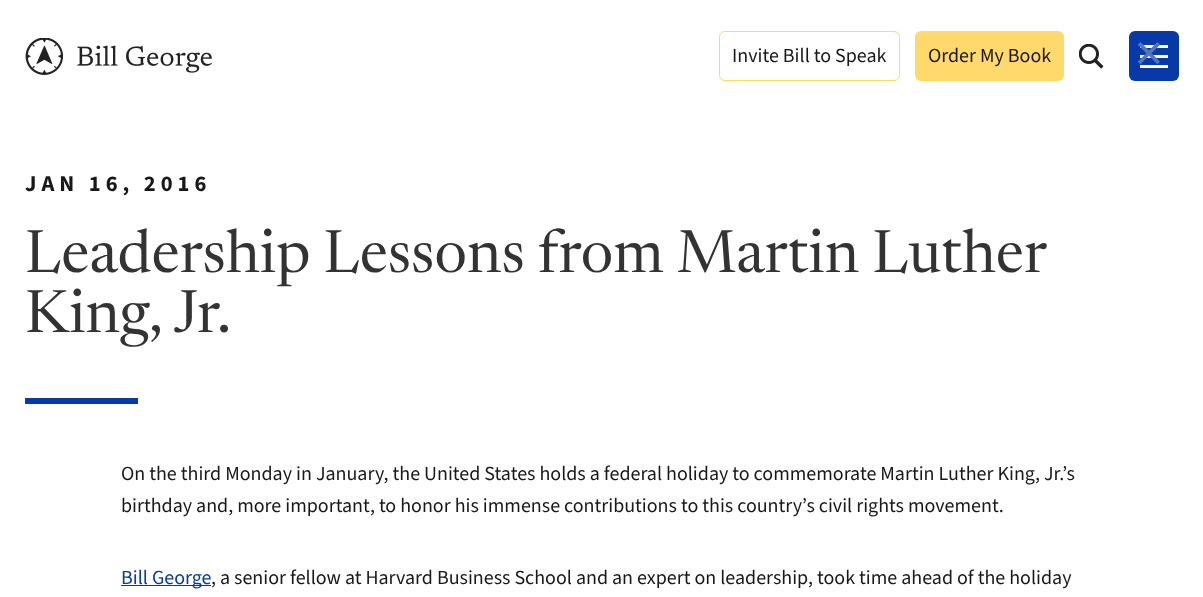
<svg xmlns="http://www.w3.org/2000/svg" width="1203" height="597">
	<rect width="100%" height="100%" fill="#FFFFFF" />
	<image x="25" y="38" width="187" height="37" href="assets/img1.png" />
	<rect x="719.5" y="31.5" width="180" height="49" rx="5.5" fill="none" stroke="#FFD96C" />
	<text x="732" y="62" font-family="'Source Sans 3'" font-size="20" fill="#181818">Invite Bill to Speak</text>
	<rect x="915" y="31" width="149" height="50" rx="6" fill="#FFD96C" />
	<text x="928" y="62" font-family="'Source Sans 3'" font-size="20" fill="#181818">Order My Book</text>
	<image x="1079" y="44" width="25" height="25" href="assets/img2.png" />
	<rect x="1129" y="31" width="50" height="50" rx="6" fill="#073AA6" />
	<rect x="1140" y="55" width="28" height="3" fill="#FFFFFF" />
	<rect x="1140" y="45" width="28" height="3" fill="#FFFFFF" />
	<rect x="1140" y="65" width="28" height="3" fill="#FFFFFF" />
	<text x="1133" y="67" font-family="DejaVu Sans" font-size="38" fill="#5275C1">✕</text>
	<text x="25" y="191" font-family="'Source Sans 3'" font-size="22.5" font-weight="700" letter-spacing="5" fill="#181818">JAN 16, 2016</text>
	<g font-family="Newsreader" font-size="60" fill="#333333">
		<text x="25" y="272" word-spacing="-0.5">Leadership Lessons from Martin Luther</text>
		<text x="25" y="332">King, Jr.</text>
	</g>
	<rect x="25" y="398" width="113" height="6" fill="#073AA6" />
	<g font-family="'Source Sans 3'" font-size="20" fill="#181818">
		<text x="121" y="480">On the third Monday in January, the United States holds a federal holiday to commemorate Martin Luther King, Jr.’s</text>
		<text x="121" y="512">birthday and, more important, to honor his immense contributions to this country’s civil rights movement.</text>
	</g>
	<rect x="121" y="585" width="90" height="1" fill="#073AA6" />
	<text x="121" y="584" font-family="'Source Sans 3'" font-size="20" fill="#073AA6">Bill George</text>
	<text x="211" y="584" font-family="'Source Sans 3'" font-size="20" fill="#181818">, a senior fellow at Harvard Business School and an expert on leadership, took time ahead of the holiday</text>
</svg>
